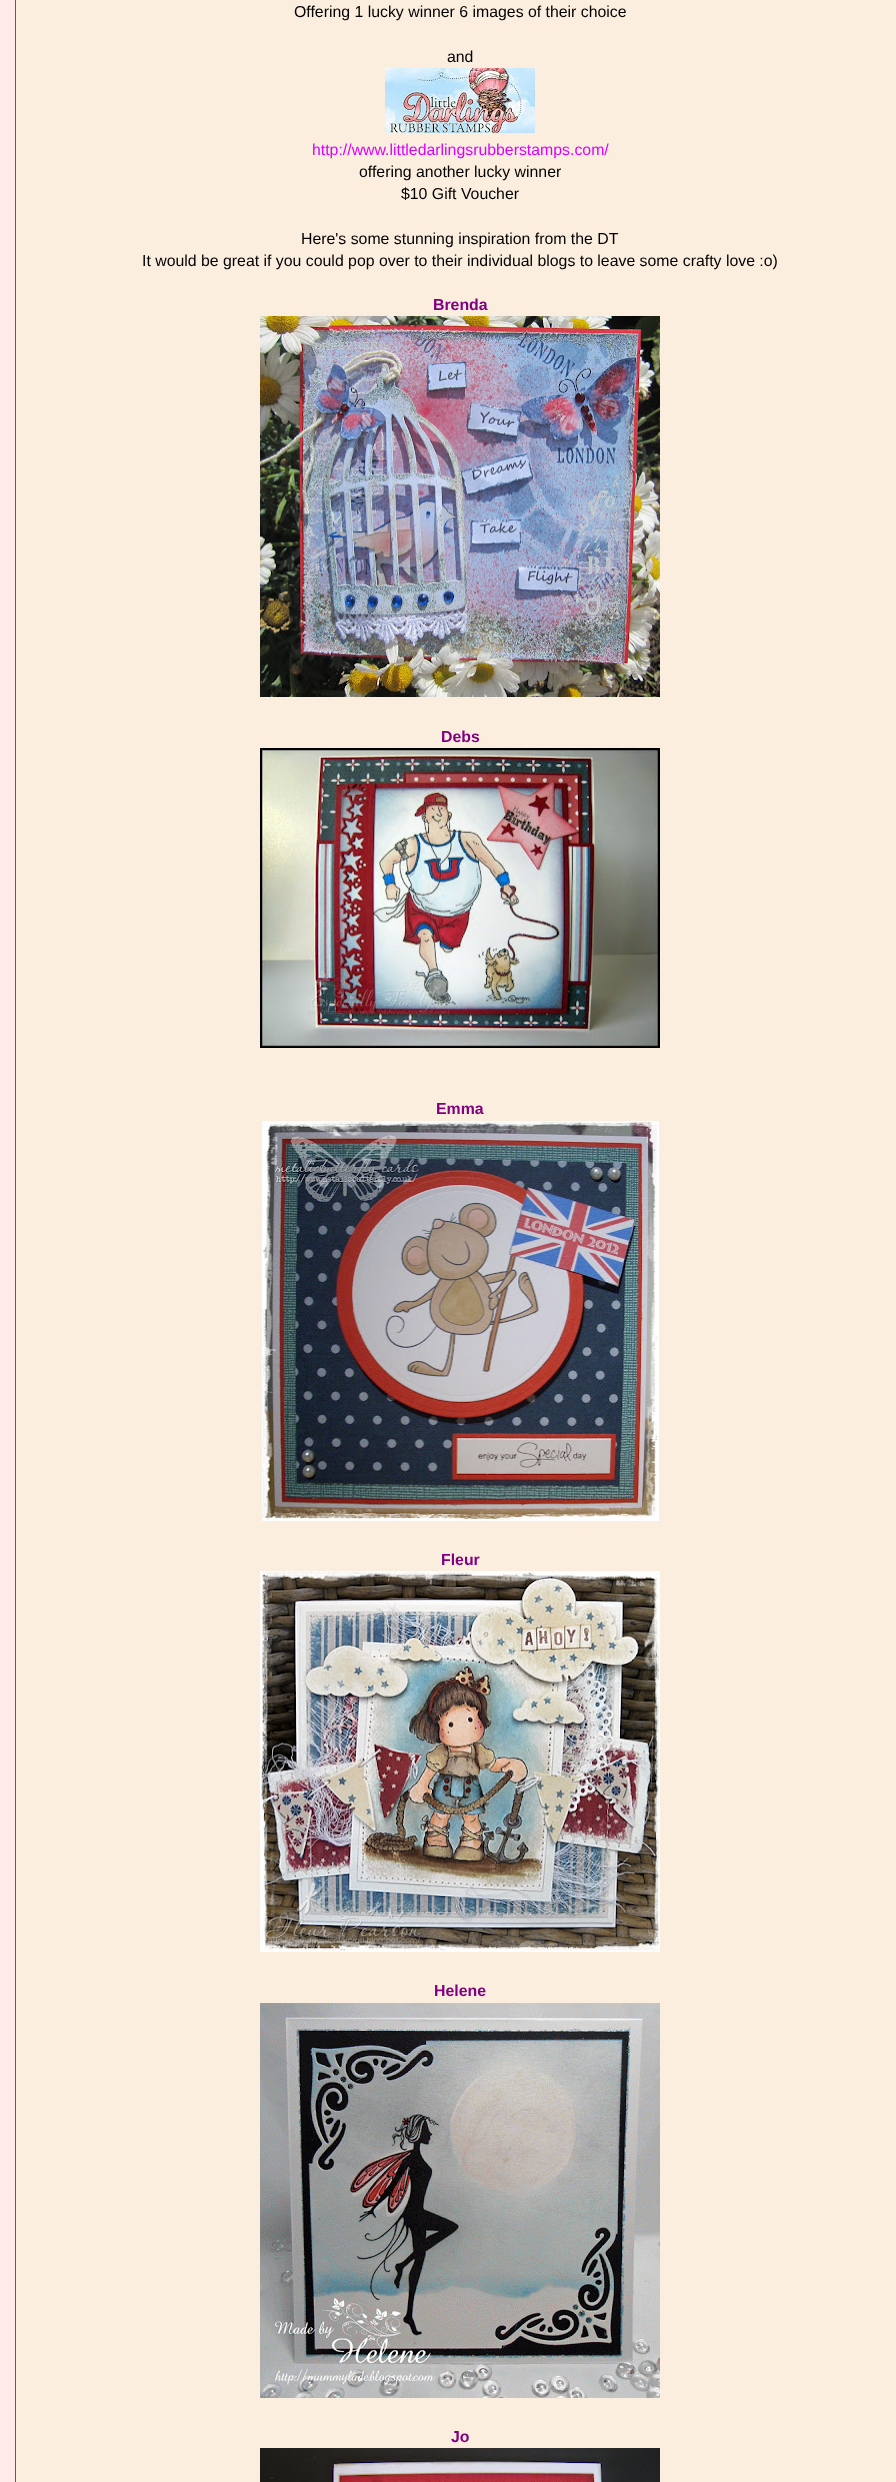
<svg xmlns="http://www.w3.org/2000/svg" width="896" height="2482">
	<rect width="100%" height="100%" fill="#FFE9E9" />
	<rect x="15.5" y="-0.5" width="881" height="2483" fill="#FCEEDE" stroke="#DD00FF" />
	<g font-family="Liberation Sans" font-size="15.85" fill="#000000">
		<text x="294" y="17">Offering 1 lucky winner 6 images of their choice</text>
		<text x="447" y="62">and</text>
	</g>
	<image x="385" y="68" width="150" height="65" href="assets/img1.png" />
	<text x="312" y="155" font-family="Liberation Sans" font-size="15.85" fill="#DD00FF">http://www.littledarlingsrubberstamps.com/</text>
	<g font-family="Liberation Sans" font-size="15.85" fill="#000000">
		<text x="359" y="177">offering another lucky winner</text>
		<text x="401" y="199">$10 Gift Voucher</text>
		<text x="301" y="244">Here's some stunning inspiration from the DT</text>
		<text x="142" y="266">It would be great if you could pop over to their individual blogs to leave some crafty love :o)</text>
	</g>
	<text x="433" y="310" font-family="Liberation Sans" font-size="15.85" font-weight="700" fill="#800080">Brenda</text>
	<image x="260" y="316" width="400" height="381" href="assets/img2.png" />
	<text x="441" y="742" font-family="Liberation Sans" font-size="15.85" font-weight="700" fill="#800080">Debs</text>
	<image x="260" y="748" width="400" height="300" href="assets/img3.png" />
	<text x="436" y="1114" font-family="Liberation Sans" font-size="15.85" font-weight="700" fill="#800080">Emma</text>
	<image x="262" y="1121" width="397" height="400" href="assets/img4.png" />
	<text x="441" y="1565" font-family="Liberation Sans" font-size="15.85" font-weight="700" fill="#800080">Fleur</text>
	<image x="260" y="1571" width="400" height="381" href="assets/img5.png" />
	<text x="434" y="1996" font-family="Liberation Sans" font-size="15.85" font-weight="700" fill="#800080">Helene</text>
	<image x="260" y="2003" width="400" height="395" href="assets/img6.png" />
	<text x="451" y="2442" font-family="Liberation Sans" font-size="15.85" font-weight="700" fill="#800080">Jo</text>
	<image x="260" y="2448" width="400" height="34" href="assets/img7.png" />
</svg>
